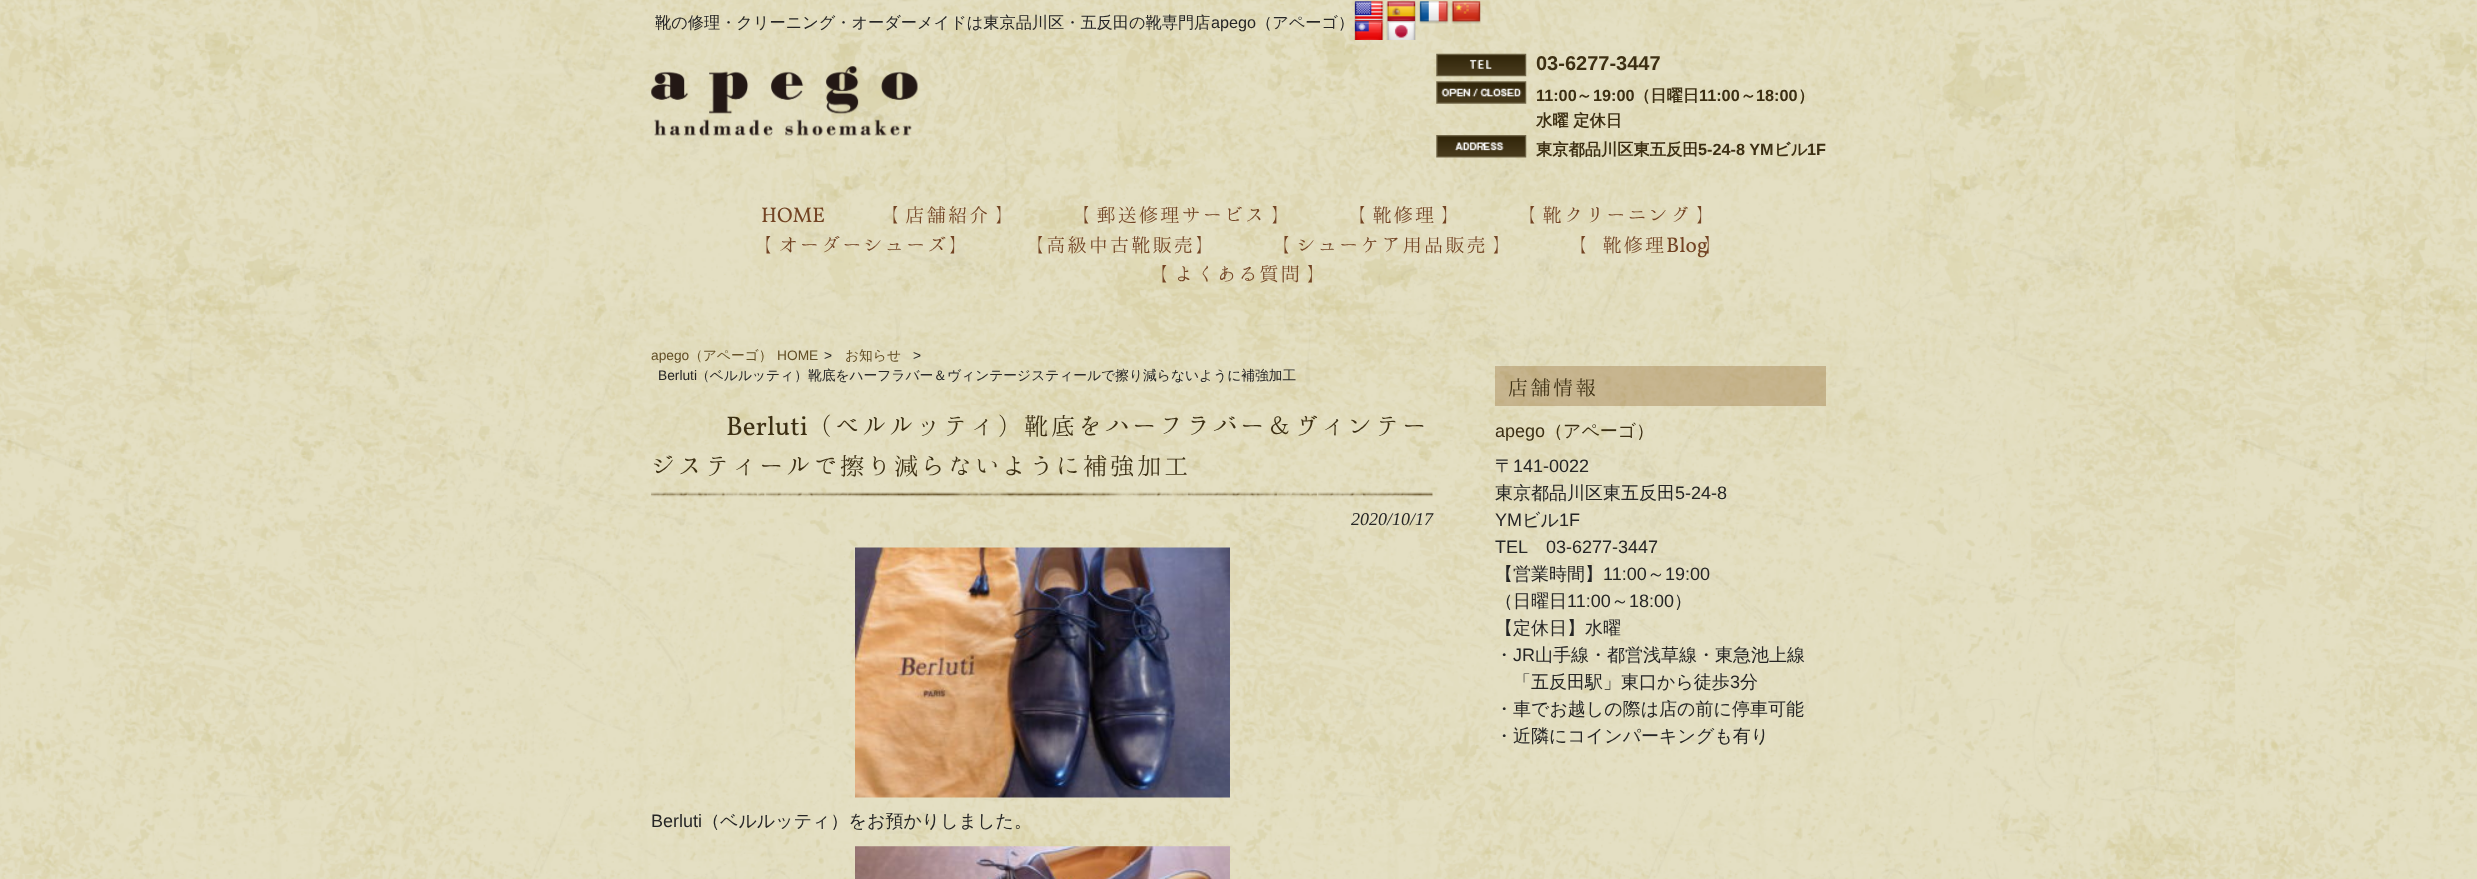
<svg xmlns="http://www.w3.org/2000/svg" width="2477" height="879">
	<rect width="100%" height="100%" fill="#FFFFFF" />
	<image x="0" y="0" width="2477" height="879" href="assets/img1.png" />
	<text x="655" y="28" font-family="WenQuanYi Zen Hei" font-size="16.2" font-weight="500" fill="#252525">靴の修理・クリーニング・オーダーメイドは東京品川区・五反田の靴専門店</text>
	<text x="1211" y="28" font-family="Liberation Sans" font-size="16.2" fill="#252525">apego</text>
	<text x="1256" y="28" font-family="WenQuanYi Zen Hei" font-size="16.2" font-weight="500" fill="#252525">（アペーゴ）</text>
	<image x="1354" y="1" width="30" height="23" href="assets/img2.png" />
	<image x="1386" y="1" width="30" height="23" href="assets/img3.png" />
	<image x="1419" y="1" width="30" height="23" href="assets/img4.png" />
	<image x="1451" y="1" width="30" height="23" href="assets/img5.png" />
	<image x="1354" y="21" width="30" height="19" href="assets/img6.png" />
	<image x="1386" y="21" width="30" height="19" href="assets/img7.png" />
	<image x="651" y="66" width="267" height="70" href="assets/img8.png" />
	<image x="1436" y="53" width="91" height="24" href="assets/img9.png" />
	<text x="1536" y="70" font-family="Liberation Sans" font-size="20" font-weight="700" fill="#3C2F13">03-6277-3447</text>
	<image x="1436" y="81" width="91" height="23" href="assets/img10.png" />
	<text x="1536" y="101" font-family="Liberation Sans" font-size="16.25" font-weight="700" fill="#3C2F13">11:00</text>
	<text x="1576" y="101" font-family="WenQuanYi Zen Hei" font-size="16.25" font-weight="700" fill="#3C2F13">～</text>
	<text x="1593" y="101" font-family="Liberation Sans" font-size="16.25" font-weight="700" fill="#3C2F13">19:00</text>
	<text x="1634" y="101" font-family="WenQuanYi Zen Hei" font-size="16.25" font-weight="700" fill="#3C2F13">（日曜日</text>
	<text x="1699" y="101" font-family="Liberation Sans" font-size="16.25" font-weight="700" fill="#3C2F13">11:00</text>
	<text x="1740" y="101" font-family="WenQuanYi Zen Hei" font-size="16.25" font-weight="700" fill="#3C2F13">～</text>
	<text x="1756" y="101" font-family="Liberation Sans" font-size="16.25" font-weight="700" fill="#3C2F13">18:00</text>
	<g font-family="WenQuanYi Zen Hei" font-size="16.25" font-weight="700" fill="#3C2F13">
		<text x="1798" y="101">）</text>
		<text x="1536" y="126">水曜 定休日</text>
	</g>
	<image x="1436" y="135" width="91" height="23" href="assets/img11.png" />
	<text x="1536" y="155" font-family="WenQuanYi Zen Hei" font-size="16.25" font-weight="700" fill="#3C2F13">東京都品川区東五反田</text>
	<text x="1698" y="155" font-family="Liberation Sans" font-size="16.25" font-weight="700" fill="#3C2F13">5-24-8 YM</text>
	<text x="1774" y="155" font-family="WenQuanYi Zen Hei" font-size="16.25" font-weight="700" fill="#3C2F13">ビル</text>
	<text x="1807" y="155" font-family="Liberation Sans" font-size="16.25" font-weight="700" fill="#3C2F13">1F</text>
	<text x="761" y="222" font-family="Vollkorn" font-size="21.25" fill="#724323">HOME</text>
	<g font-family="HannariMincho" font-size="21.25" fill="#724323">
		<text x="880" y="222" word-spacing="-17">【 店舗紹介 】</text>
		<text x="1071" y="222" word-spacing="-17">【 郵送修理サービス 】</text>
		<text x="1347" y="222" word-spacing="-17">【 靴修理 】</text>
		<text x="1517" y="222" word-spacing="-17">【 靴クリーニング 】</text>
		<text x="753" y="252" word-spacing="-17">【 オーダーシューズ】</text>
		<text x="1025" y="252">【高級中古靴販売】</text>
		<text x="1271" y="252" word-spacing="-17">【 シューケア用品販売 】</text>
		<text x="1568" y="252" word-spacing="-8">【 靴修理</text>
	</g>
	<text x="1666" y="252" font-family="Vollkorn" font-size="21.25" fill="#724323">Blog</text>
	<g font-family="HannariMincho" font-size="21.25" fill="#724323">
		<text x="1703" y="252">】</text>
		<text x="1149" y="281" word-spacing="-17">【 よくある質問 】</text>
	</g>
	<text x="651" y="360" font-family="Liberation Sans" font-size="13.75" fill="#624E24">apego</text>
	<text x="689" y="360" font-family="WenQuanYi Zen Hei" font-size="13.75" font-weight="500" fill="#624E24">（アペーゴ）</text>
	<text x="777" y="360" font-family="Liberation Sans" font-size="13.75" fill="#624E24">HOME</text>
	<text x="824" y="360" font-family="Liberation Sans" font-size="13.75" fill="#252525">&gt;</text>
	<text x="845" y="360" font-family="WenQuanYi Zen Hei" font-size="13.75" font-weight="500" fill="#624E24">お知らせ</text>
	<g font-family="Liberation Sans" font-size="13.75" fill="#252525">
		<text x="913" y="360">&gt;</text>
		<text x="658" y="380">Berluti</text>
	</g>
	<text x="696" y="380" font-family="WenQuanYi Zen Hei" font-size="13.75" font-weight="500" fill="#252525">（ベルルッティ）靴底をハーフラバー＆ヴィンテージスティールで擦り減らないように補強加工</text>
	<image x="651" y="492" width="782" height="5" href="assets/img12.png" />
	<text x="726" y="435" font-family="Vollkorn" font-size="27" fill="#3C2F13">Berluti</text>
	<g font-family="HannariMincho" font-size="27" fill="#3C2F13">
		<text x="808" y="435">（ベルルッティ）靴底をハーフラバー＆ヴィンテー</text>
		<text x="651" y="475">ジスティールで擦り減らないように補強加工</text>
	</g>
	<text x="1351" y="525" font-family="Liberation Serif" font-size="18" font-style="italic" fill="#252525">2020/10/17</text>
	<image x="855" y="547" width="375" height="251" href="assets/img13.png" />
	<text x="651" y="827" font-family="Liberation Sans" font-size="18" fill="#252525">Berluti</text>
	<text x="702" y="827" font-family="WenQuanYi Zen Hei" font-size="18" font-weight="500" fill="#252525">（ベルルッティ）をお預かりしました。</text>
	<image x="855" y="846" width="375" height="33" href="assets/img14.png" />
	<rect x="1495" y="366" width="331" height="40" fill="#9C7540" fill-opacity="0.4" />
	<text x="1508" y="395" font-family="HannariMincho" font-size="22.5" fill="#3C2F13">店舗情報</text>
	<text x="1495" y="437" font-family="Liberation Sans" font-size="18" fill="#3C2F13">apego</text>
	<text x="1545" y="437" font-family="WenQuanYi Zen Hei" font-size="18" font-weight="500" fill="#3C2F13">（アペーゴ）</text>
	<text x="1495" y="472" font-family="WenQuanYi Zen Hei" font-size="18" font-weight="500" fill="#252525">〒</text>
	<text x="1513" y="472" font-family="Liberation Sans" font-size="18" fill="#252525">141-0022</text>
	<text x="1495" y="499" font-family="WenQuanYi Zen Hei" font-size="18" font-weight="500" fill="#252525">東京都品川区東五反田</text>
	<g font-family="Liberation Sans" font-size="18" fill="#252525">
		<text x="1675" y="499">5-24-8</text>
		<text x="1495" y="526">YM</text>
	</g>
	<text x="1522" y="526" font-family="WenQuanYi Zen Hei" font-size="18" font-weight="500" fill="#252525">ビル</text>
	<g font-family="Liberation Sans" font-size="18" fill="#252525">
		<text x="1559" y="526">1F</text>
		<text x="1495" y="553">TEL</text>
		<text x="1546" y="553">03-6277-3447</text>
	</g>
	<text x="1495" y="580" font-family="WenQuanYi Zen Hei" font-size="18" font-weight="500" fill="#252525">【営業時間】</text>
	<text x="1603" y="580" font-family="Liberation Sans" font-size="18" fill="#252525">11:00</text>
	<text x="1647" y="580" font-family="WenQuanYi Zen Hei" font-size="18" font-weight="500" fill="#252525">～</text>
	<text x="1665" y="580" font-family="Liberation Sans" font-size="18" fill="#252525">19:00</text>
	<text x="1495" y="607" font-family="WenQuanYi Zen Hei" font-size="18" font-weight="500" fill="#252525">（日曜日</text>
	<text x="1567" y="607" font-family="Liberation Sans" font-size="18" fill="#252525">11:00</text>
	<text x="1611" y="607" font-family="WenQuanYi Zen Hei" font-size="18" font-weight="500" fill="#252525">～</text>
	<text x="1629" y="607" font-family="Liberation Sans" font-size="18" fill="#252525">18:00</text>
	<g font-family="WenQuanYi Zen Hei" font-size="18" font-weight="500" fill="#252525">
		<text x="1674" y="607">）</text>
		<text x="1495" y="634">【定休日】水曜</text>
		<text x="1495" y="661">・</text>
	</g>
	<text x="1513" y="661" font-family="Liberation Sans" font-size="18" fill="#252525">JR</text>
	<g font-family="WenQuanYi Zen Hei" font-size="18" font-weight="500" fill="#252525">
		<text x="1535" y="661">山手線・都営浅草線・東急池上線</text>
		<text x="1513" y="688">「五反田駅」東口から徒歩</text>
	</g>
	<text x="1730" y="688" font-family="Liberation Sans" font-size="18" fill="#252525">3</text>
	<g font-family="WenQuanYi Zen Hei" font-size="18" font-weight="500" fill="#252525">
		<text x="1740" y="688">分</text>
		<text x="1495" y="715">・車でお越しの際は店の前に停車可能</text>
		<text x="1495" y="742">・近隣にコインパーキングも有り</text>
	</g>
</svg>
